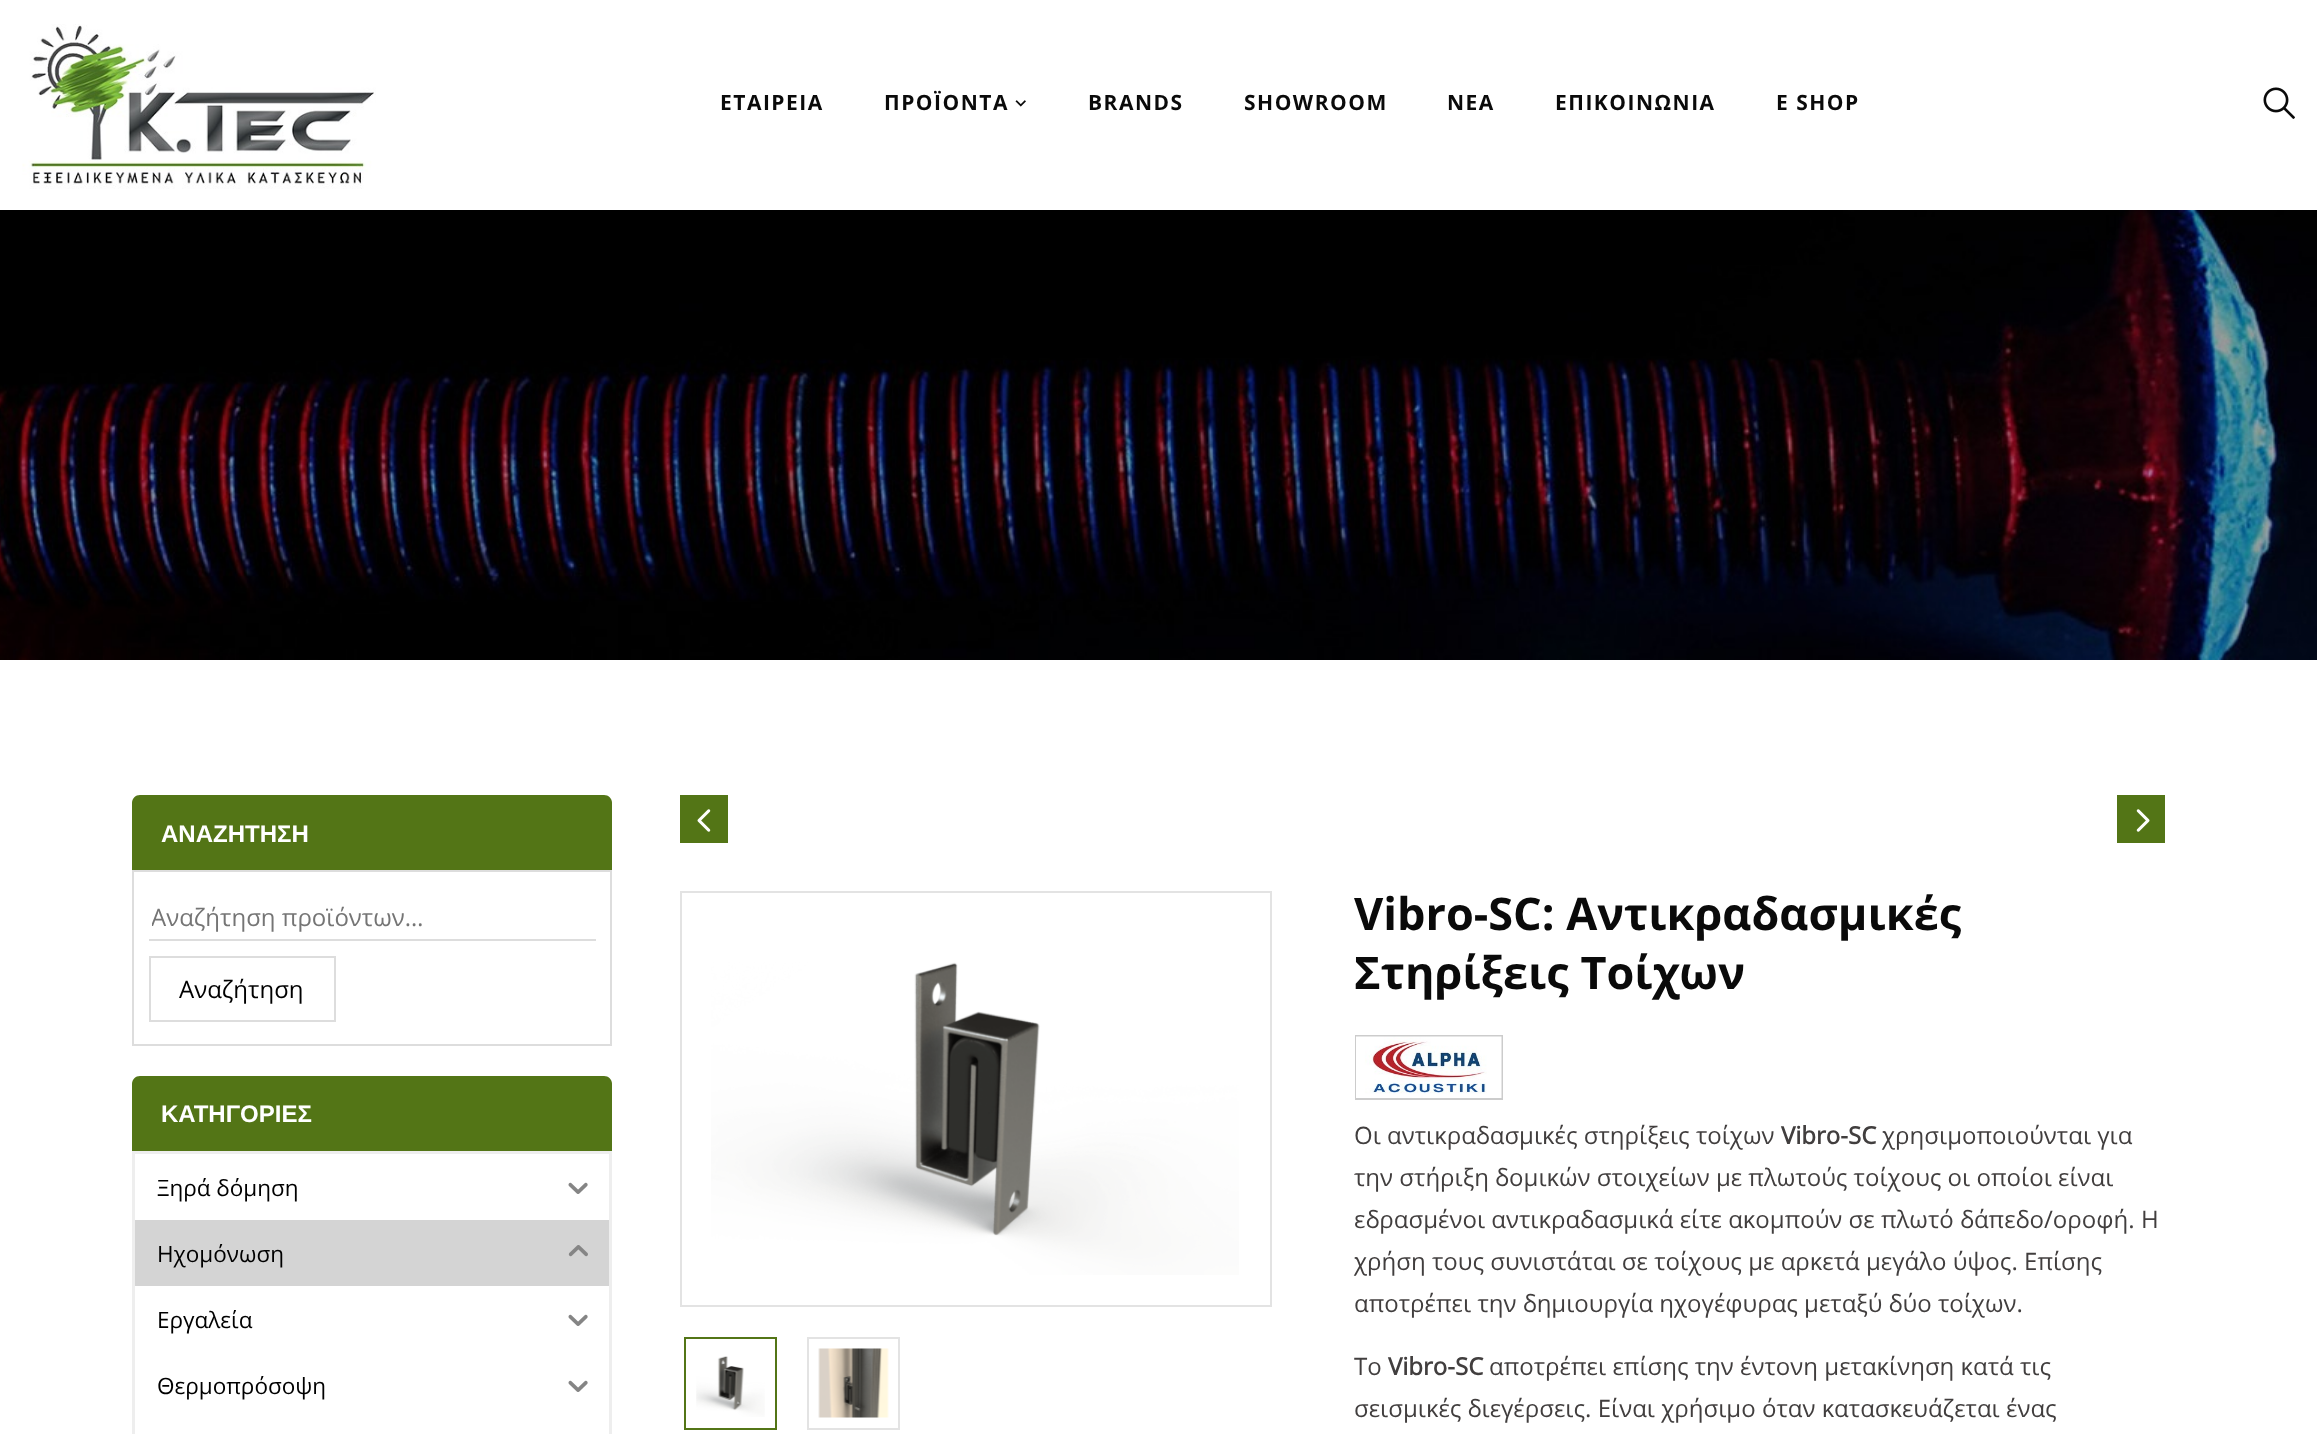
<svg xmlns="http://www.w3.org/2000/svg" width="2317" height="1434">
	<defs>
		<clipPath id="clip1"><rect x="152" y="900" width="435" height="33" /></clipPath>
	</defs>
	<rect width="100%" height="100%" fill="#FFFFFF" />
	<image x="22" y="24" width="354" height="165" href="assets/img1.png" />
	<g font-family="Open Sans" font-size="21" font-weight="700" letter-spacing="1.5" fill="#0A0A0A">
		<text x="720" y="110">ΕΤΑΙΡΕΙΑ</text>
		<text x="884" y="110">ΠΡΟΪΟΝΤΑ</text>
	</g>
	<image x="1015" y="100" width="11" height="7" href="assets/img2.png" />
	<g font-family="Open Sans" font-size="21" font-weight="700" letter-spacing="1.5" fill="#0A0A0A">
		<text x="1088" y="110">BRANDS</text>
		<text x="1244" y="110">SHOWROOM</text>
		<text x="1447" y="110">ΝΕΑ</text>
		<text x="1555" y="110">ΕΠΙΚΟΙΝΩΝΙΑ</text>
		<text x="1776" y="110">E SHOP</text>
	</g>
	<image x="2263" y="87" width="32" height="32" href="assets/img3.png" />
	<image x="0" y="210" width="2317" height="450" href="assets/img4.png" />
	<path d="M140 795H604C608.5 795 612 798.5 612 803V870H132V803C132 798.5 135.5 795 140 795Z" fill="#537516" />
	<text x="161" y="842" font-family="Liberation Sans" font-size="24" font-weight="700" fill="#FFFFFF">ΑΝΑΖΗΤΗΣΗ</text>
	<rect x="133" y="871" width="478" height="174" fill="none" stroke="#DDDDDD" stroke-width="2" />
	<rect x="149" y="939" width="447" height="2" fill="#DDDDDD" />
	<g clip-path="url(#clip1)">
		<text x="151" y="926" font-family="Open Sans" font-size="24" fill="#757575">Αναζήτηση προϊόντων…</text>
	</g>
	<rect x="150" y="957" width="185" height="64" fill="none" stroke="#DDDDDD" stroke-width="2" />
	<text x="179" y="998" font-family="Open Sans" font-size="24" fill="#000000">Αναζήτηση</text>
	<path d="M140 1076H604C608.5 1076 612 1079.5 612 1084V1151H132V1084C132 1079.5 135.5 1076 140 1076Z" fill="#537516" />
	<text x="161" y="1122" font-family="Liberation Sans" font-size="24" font-weight="700" fill="#FFFFFF">ΚΑΤΗΓΟΡΙΕΣ</text>
	<rect x="133.5" y="1152.5" width="477" height="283" fill="none" stroke="#EEEEEE" stroke-width="3" />
	<text x="157" y="1196" font-family="Open Sans" font-size="22.5" fill="#000000">Ξηρά δόμηση</text>
	<image x="568" y="1182" width="20" height="12" href="assets/img5.png" />
	<rect x="135" y="1220" width="474" height="66" fill="#D4D4D4" />
	<text x="157" y="1262" font-family="Open Sans" font-size="22.5" fill="#000000">Ηχομόνωση</text>
	<image x="568" y="1245" width="20" height="12" href="assets/img6.png" />
	<text x="157" y="1328" font-family="Open Sans" font-size="22.5" fill="#000000">Εργαλεία</text>
	<image x="568" y="1314" width="20" height="12" href="assets/img5.png" />
	<text x="157" y="1394" font-family="Open Sans" font-size="22.5" fill="#000000">Θερμοπρόσοψη</text>
	<image x="568" y="1380" width="20" height="12" href="assets/img5.png" />
	<rect x="680" y="795" width="48" height="48" fill="#537516" />
	<image x="697" y="809" width="14" height="23" href="assets/img7.png" />
	<rect x="2117" y="795" width="48" height="48" fill="#537516" />
	<image x="2136" y="809" width="14" height="23" href="assets/img8.png" />
	<rect x="681" y="892" width="590" height="414" fill="none" stroke="#E3E3E3" stroke-width="2" />
	<image x="711" y="962" width="528" height="313" href="assets/img9.png" />
	<rect x="685" y="1338" width="91" height="91" fill="none" stroke="#537516" stroke-width="2" />
	<image x="696" y="1356" width="69" height="61" href="assets/img10.png" />
	<rect x="808" y="1338" width="91" height="91" fill="none" stroke="#E3E3E3" stroke-width="2" />
	<image x="818" y="1348" width="71" height="70" href="assets/img11.png" />
	<g font-family="Open Sans" font-size="45" font-weight="700" fill="#0A0A0A">
		<text x="1354" y="930">Vibro-SC: Αντικραδασμικές</text>
		<text x="1354" y="989">Στηρίξεις Τοίχων</text>
	</g>
	<rect x="1356" y="1036" width="146" height="63" fill="none" stroke="#CCCCCC" stroke-width="2" />
	<image x="1356" y="1036" width="146" height="62" href="assets/img12.png" />
	<text x="1354" y="1144" font-family="'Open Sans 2'" font-size="24" fill="#413E3E">Οι αντικραδασμικές στηρίξεις τοίχων</text>
	<text x="1781" y="1144" font-family="'Open Sans 2'" font-size="24" font-weight="700" fill="#413E3E">Vibro-SC</text>
	<g font-family="'Open Sans 2'" font-size="24" fill="#413E3E">
		<text x="1882" y="1144">χρησιμοποιούνται για</text>
		<text x="1354" y="1186">την στήριξη δομικών στοιχείων με πλωτούς τοίχους οι οποίοι είναι</text>
		<text x="1354" y="1228">εδρασμένοι αντικραδασμικά είτε ακομπούν σε πλωτό δάπεδο/οροφή. Η</text>
		<text x="1354" y="1270">χρήση τους συνιστάται σε τοίχους με αρκετά μεγάλο ύψος. Επίσης</text>
		<text x="1354" y="1312">αποτρέπει την δημιουργία ηχογέφυρας μεταξύ δύο τοίχων.</text>
		<text x="1354" y="1375">Το</text>
	</g>
	<text x="1388" y="1375" font-family="'Open Sans 2'" font-size="24" font-weight="700" fill="#413E3E">Vibro-SC</text>
	<g font-family="'Open Sans 2'" font-size="24" fill="#413E3E">
		<text x="1489" y="1375">αποτρέπει επίσης την έντονη μετακίνηση κατά τις</text>
		<text x="1354" y="1417">σεισμικές διεγέρσεις. Είναι χρήσιμο όταν κατασκευάζεται ένας</text>
	</g>
</svg>
